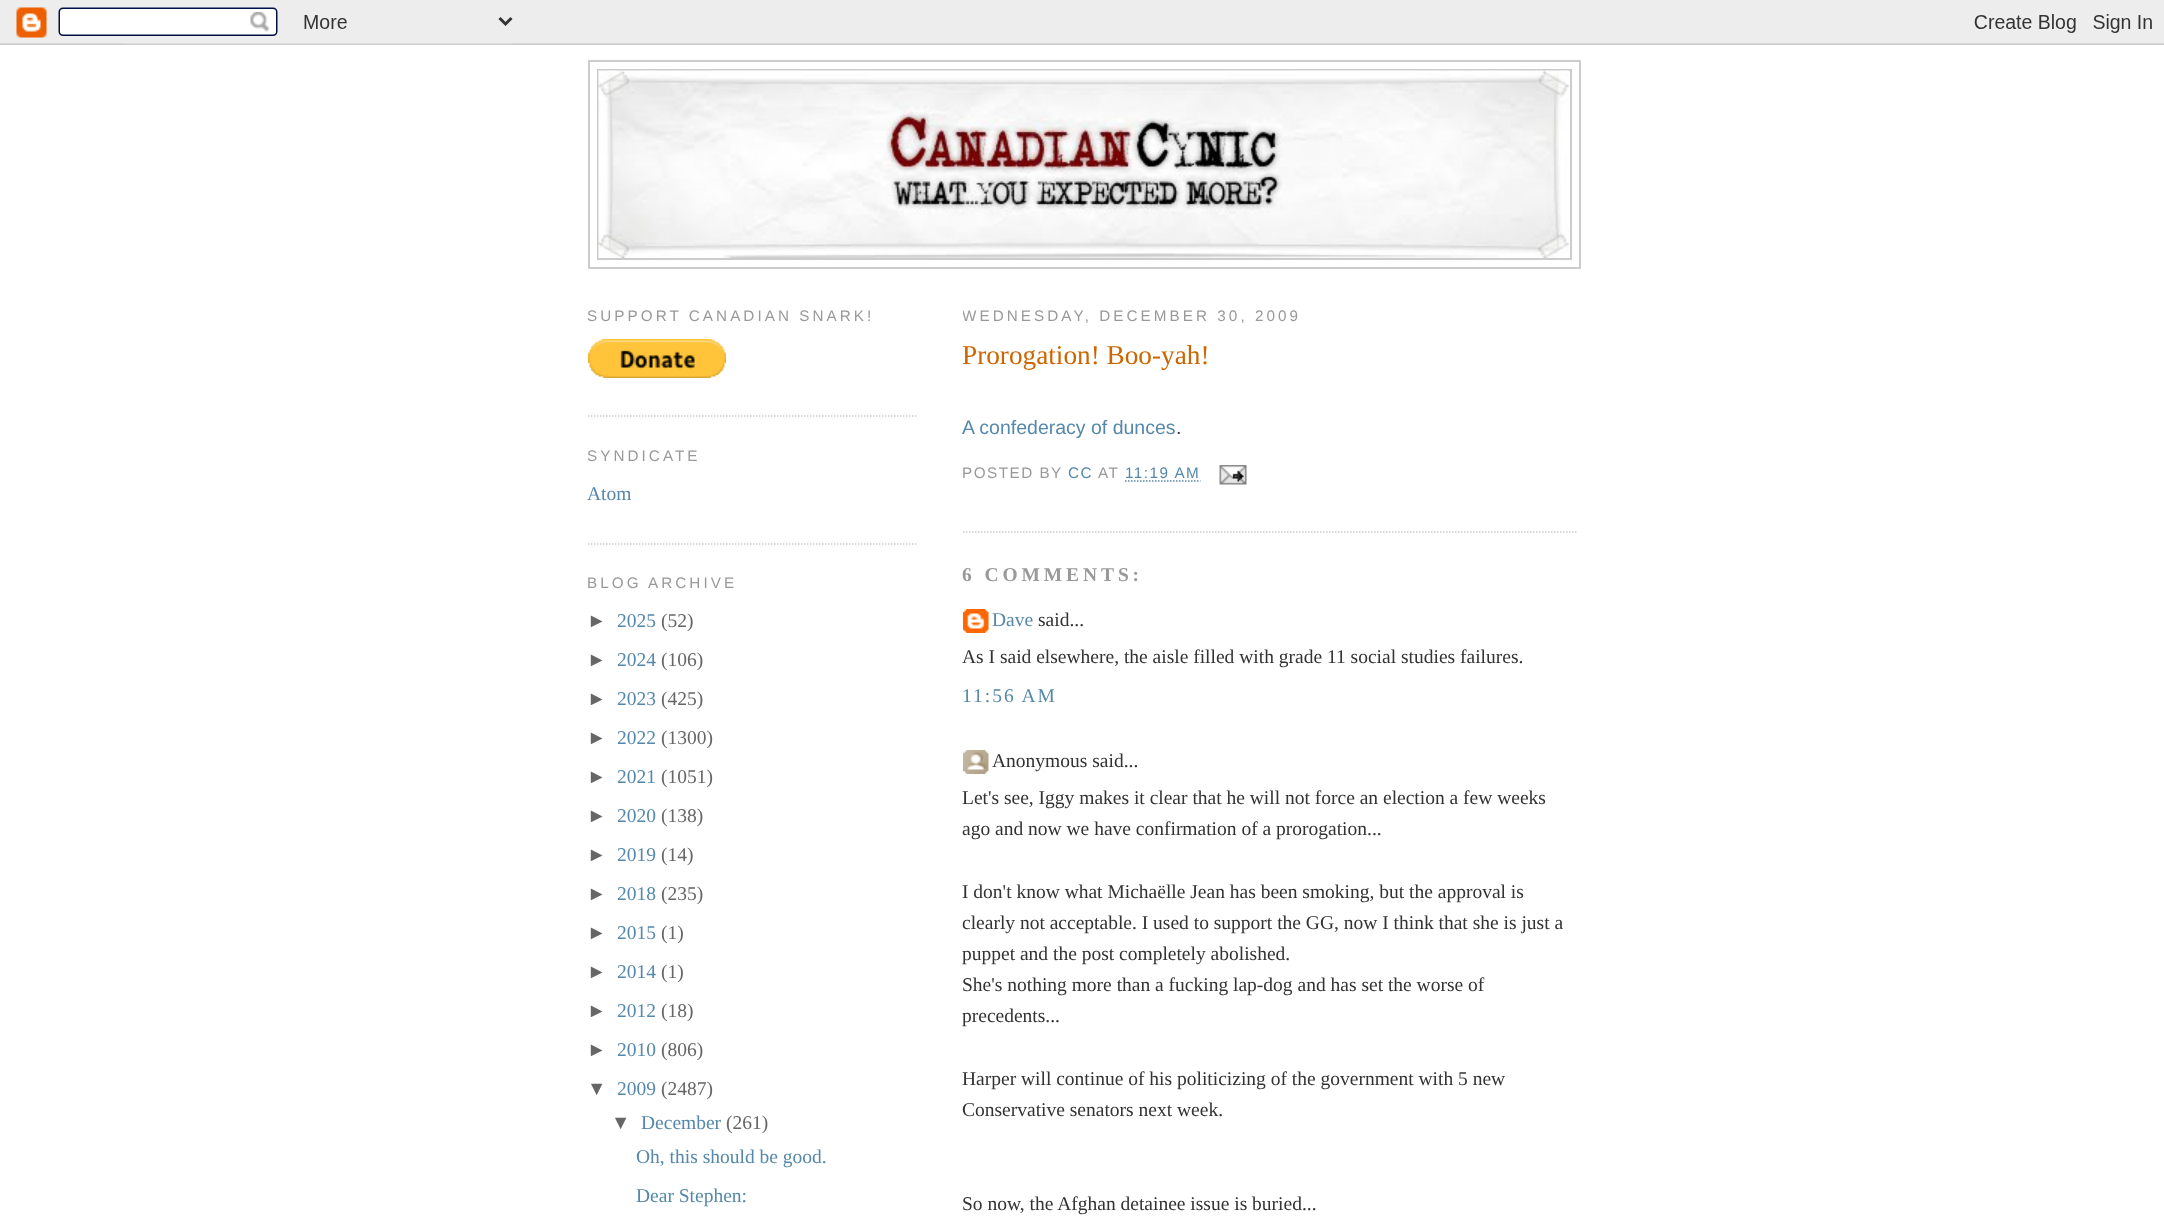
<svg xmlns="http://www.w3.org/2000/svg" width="2164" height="1226">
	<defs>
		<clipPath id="clip1"><rect x="963" y="284" width="615" height="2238" /></clipPath>
	</defs>
	<rect width="100%" height="100%" fill="#FFFFFF" />
	<image x="0" y="0" width="2164" height="45" href="assets/img1.png" />
	<rect x="589" y="61" width="991" height="207" fill="none" stroke="#CCCCCC" stroke-width="2" />
	<rect x="598" y="70" width="973" height="189" fill="none" stroke="#CCCCCC" stroke-width="2" />
	<image x="598" y="70" width="971" height="188" href="assets/img2.png" />
	<path d="M588 416H918" fill="none" stroke="#CCCCCC" stroke-width="1.5" stroke-dasharray="1.5 1.5" />
	<text x="587" y="321" font-family="Liberation Sans" font-size="15.25" letter-spacing="3.05" fill="#999999">SUPPORT CANADIAN SNARK!</text>
	<image x="588" y="339" width="138" height="39" href="assets/img3.png" />
	<path d="M588 544H918" fill="none" stroke="#CCCCCC" stroke-width="1.5" stroke-dasharray="1.5 1.5" />
	<text x="587" y="461" font-family="Liberation Sans" font-size="15.25" letter-spacing="3.05" fill="#999999">SYNDICATE</text>
	<text x="587" y="500" font-family="Liberation Serif" font-size="19.5" fill="#5588AA">Atom</text>
	<text x="587" y="588" font-family="Liberation Sans" font-size="15.25" letter-spacing="3.05" fill="#999999">BLOG ARCHIVE</text>
	<text x="587" y="627" font-family="Liberation Sans" font-size="19.5" fill="#666666">►</text>
	<text x="617" y="627" font-family="Liberation Serif" font-size="19.5" fill="#5588AA">2025</text>
	<text x="661" y="627" font-family="Liberation Serif" font-size="19.5" fill="#666666">(52)</text>
	<text x="587" y="666" font-family="Liberation Sans" font-size="19.5" fill="#666666">►</text>
	<text x="617" y="666" font-family="Liberation Serif" font-size="19.5" fill="#5588AA">2024</text>
	<text x="661" y="666" font-family="Liberation Serif" font-size="19.5" fill="#666666">(106)</text>
	<text x="587" y="705" font-family="Liberation Sans" font-size="19.5" fill="#666666">►</text>
	<text x="617" y="705" font-family="Liberation Serif" font-size="19.5" fill="#5588AA">2023</text>
	<text x="661" y="705" font-family="Liberation Serif" font-size="19.5" fill="#666666">(425)</text>
	<text x="587" y="744" font-family="Liberation Sans" font-size="19.5" fill="#666666">►</text>
	<text x="617" y="744" font-family="Liberation Serif" font-size="19.5" fill="#5588AA">2022</text>
	<text x="661" y="744" font-family="Liberation Serif" font-size="19.5" fill="#666666">(1300)</text>
	<text x="587" y="783" font-family="Liberation Sans" font-size="19.5" fill="#666666">►</text>
	<text x="617" y="783" font-family="Liberation Serif" font-size="19.5" fill="#5588AA">2021</text>
	<text x="661" y="783" font-family="Liberation Serif" font-size="19.5" fill="#666666">(1051)</text>
	<text x="587" y="822" font-family="Liberation Sans" font-size="19.5" fill="#666666">►</text>
	<text x="617" y="822" font-family="Liberation Serif" font-size="19.5" fill="#5588AA">2020</text>
	<text x="661" y="822" font-family="Liberation Serif" font-size="19.5" fill="#666666">(138)</text>
	<text x="587" y="861" font-family="Liberation Sans" font-size="19.5" fill="#666666">►</text>
	<text x="617" y="861" font-family="Liberation Serif" font-size="19.5" fill="#5588AA">2019</text>
	<text x="661" y="861" font-family="Liberation Serif" font-size="19.5" fill="#666666">(14)</text>
	<text x="587" y="900" font-family="Liberation Sans" font-size="19.5" fill="#666666">►</text>
	<text x="617" y="900" font-family="Liberation Serif" font-size="19.5" fill="#5588AA">2018</text>
	<text x="661" y="900" font-family="Liberation Serif" font-size="19.5" fill="#666666">(235)</text>
	<text x="587" y="939" font-family="Liberation Sans" font-size="19.5" fill="#666666">►</text>
	<text x="617" y="939" font-family="Liberation Serif" font-size="19.5" fill="#5588AA">2015</text>
	<text x="661" y="939" font-family="Liberation Serif" font-size="19.5" fill="#666666">(1)</text>
	<text x="587" y="978" font-family="Liberation Sans" font-size="19.5" fill="#666666">►</text>
	<text x="617" y="978" font-family="Liberation Serif" font-size="19.5" fill="#5588AA">2014</text>
	<text x="661" y="978" font-family="Liberation Serif" font-size="19.5" fill="#666666">(1)</text>
	<text x="587" y="1017" font-family="Liberation Sans" font-size="19.5" fill="#666666">►</text>
	<text x="617" y="1017" font-family="Liberation Serif" font-size="19.5" fill="#5588AA">2012</text>
	<text x="661" y="1017" font-family="Liberation Serif" font-size="19.5" fill="#666666">(18)</text>
	<text x="587" y="1056" font-family="Liberation Sans" font-size="19.5" fill="#666666">►</text>
	<text x="617" y="1056" font-family="Liberation Serif" font-size="19.5" fill="#5588AA">2010</text>
	<text x="661" y="1056" font-family="Liberation Serif" font-size="19.5" fill="#666666">(806)</text>
	<text x="587" y="1095" font-family="Liberation Sans" font-size="19.5" fill="#666666">▼</text>
	<text x="617" y="1095" font-family="Liberation Serif" font-size="19.5" fill="#5588AA">2009</text>
	<text x="661" y="1095" font-family="Liberation Serif" font-size="19.5" fill="#666666">(2487)</text>
	<text x="611" y="1129" font-family="Liberation Sans" font-size="19.5" fill="#666666">▼</text>
	<text x="641" y="1129" font-family="Liberation Serif" font-size="19.5" fill="#5588AA">December</text>
	<text x="726" y="1129" font-family="Liberation Serif" font-size="19.5" fill="#666666">(261)</text>
	<g font-family="Liberation Serif" font-size="19.5" fill="#5588AA">
		<text x="636" y="1163">Oh, this should be good.</text>
		<text x="636" y="1202">Dear Stephen:</text>
	</g>
	<g clip-path="url(#clip1)">
		<text x="962" y="321" font-family="Liberation Sans" font-size="15.25" letter-spacing="3.05" fill="#999999">WEDNESDAY, DECEMBER 30, 2009</text>
	</g>
	<path d="M963 532H1578" fill="none" stroke="#CCCCCC" stroke-width="1.5" stroke-dasharray="1.5 1.5" />
	<text x="962" y="364" font-family="Liberation Serif" font-size="27.25" fill="#CC6600">Prorogation! Boo-yah!</text>
	<text x="962" y="434" font-family="Liberation Sans" font-size="19.5" fill="#5588AA">A confederacy of dunces</text>
	<text x="1176" y="434" font-family="Liberation Sans" font-size="19.5" fill="#333333">.</text>
	<text x="962" y="478" font-family="Liberation Sans" font-size="15.25" letter-spacing="1.5" fill="#999999">POSTED BY</text>
	<text x="1068" y="478" font-family="Liberation Sans" font-size="15.25" letter-spacing="1.5" fill="#5588AA">CC</text>
	<text x="1098" y="478" font-family="Liberation Sans" font-size="15.25" letter-spacing="1.5" fill="#999999">AT</text>
	<text x="1125" y="478" font-family="Liberation Sans" font-size="15.25" letter-spacing="1.5" fill="#5588AA">11:19 AM</text>
	<path d="M1125 481H1200.5" fill="none" stroke="#5588AA" stroke-width="1.5" stroke-dasharray="1.5 1.5" />
	<image x="1219" y="465" width="28" height="20" href="assets/img4.png" />
	<text x="962" y="581" font-family="Liberation Serif" font-size="19.5" font-weight="700" letter-spacing="3.9" fill="#999999">6 COMMENTS:</text>
	<image x="963" y="609" width="26" height="24" href="assets/img5.png" />
	<text x="992" y="626" font-family="Liberation Serif" font-size="19.5" fill="#5588AA">Dave</text>
	<g font-family="Liberation Serif" font-size="19.5" fill="#333333">
		<text x="1038" y="626">said...</text>
		<text x="962" y="663">As I said elsewhere, the aisle filled with grade 11 social studies failures.</text>
	</g>
	<text x="962" y="702" font-family="Liberation Serif" font-size="19.5" letter-spacing="2" fill="#5588AA">11:56 AM</text>
	<image x="963" y="750" width="26" height="24" href="assets/img6.png" />
	<g font-family="Liberation Serif" font-size="19.5" fill="#333333">
		<text x="992" y="767">Anonymous said...</text>
		<text x="962" y="804">Let's see, Iggy makes it clear that he will not force an election a few weeks</text>
		<text x="962" y="835">ago and now we have confirmation of a prorogation...</text>
		<text x="962" y="898">I don't know what Michaëlle Jean has been smoking, but the approval is</text>
		<text x="962" y="929">clearly not acceptable. I used to support the GG, now I think that she is just a</text>
		<text x="962" y="960">puppet and the post completely abolished.</text>
		<text x="962" y="991">She's nothing more than a fucking lap-dog and has set the worse of</text>
		<text x="962" y="1022">precedents...</text>
		<text x="962" y="1085">Harper will continue of his politicizing of the government with 5 new</text>
		<text x="962" y="1116">Conservative senators next week.</text>
		<text x="962" y="1210">So now, the Afghan detainee issue is buried...</text>
	</g>
</svg>
